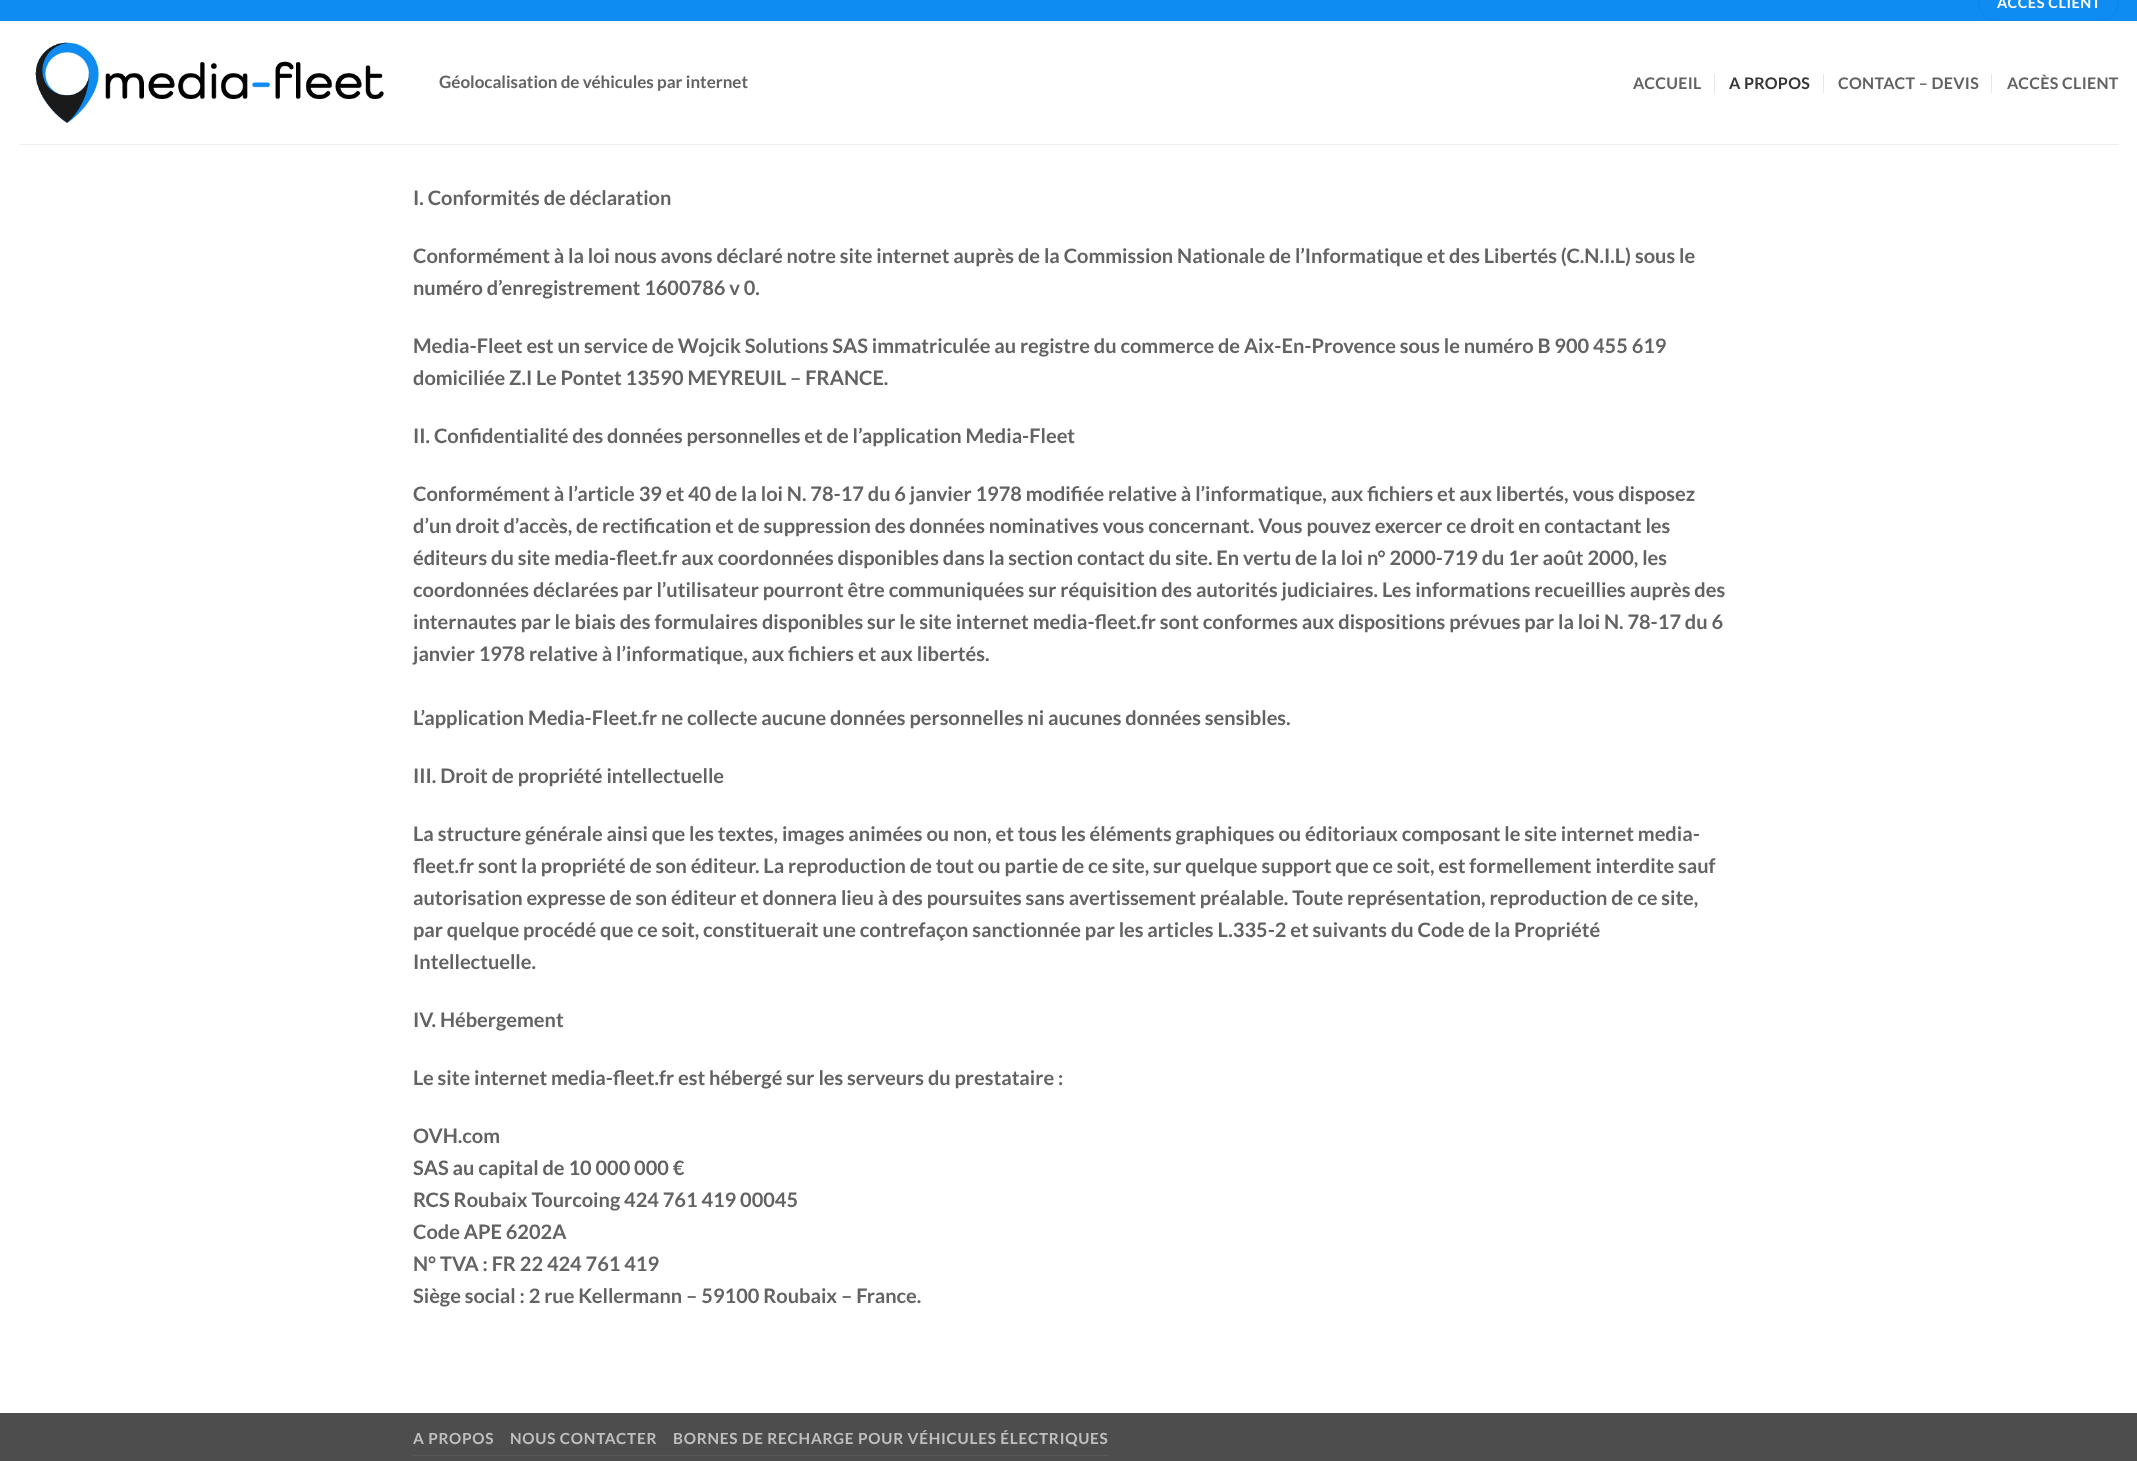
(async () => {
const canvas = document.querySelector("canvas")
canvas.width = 2137
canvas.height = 1461
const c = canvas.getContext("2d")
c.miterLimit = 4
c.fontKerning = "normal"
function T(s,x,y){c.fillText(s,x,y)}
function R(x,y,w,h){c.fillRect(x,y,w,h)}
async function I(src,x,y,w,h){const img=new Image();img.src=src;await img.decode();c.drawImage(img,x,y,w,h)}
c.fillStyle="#fff"
R(0,0,2137,1461)
c.fillStyle="#0f8cf2"
R(0,0,2137,21)
c.beginPath()
c.roundRect(1978.5,-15.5,140,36,18)
c.strokeStyle="#0e85e6"
c.stroke()
c.letterSpacing="0.5px"
c.font="bold 14.5px Lato"
c.fillStyle="#fff"
T("ACCÈS CLIENT",1997,8)
await I("1.png",35,42,349,82)
c.letterSpacing="0px"
c.font="bold 17px Lato"
c.fillStyle="#636363"
T("Géolocalisation de véhicules par internet",439,88)
c.letterSpacing="0.3px"
c.font="bold 16px Lato"
T("ACCUEIL",1633,89)
c.fillStyle="#e6e6e6"
R(1714,74,1,19)
c.fillStyle="#363636"
T("A PROPOS",1729,89)
c.fillStyle="#e6e6e6"
R(1823,74,1,19)
c.fillStyle="#636363"
T("CONTACT – DEVIS",1838,89)
c.fillStyle="#e6e6e6"
R(1991,74,1,19)
c.fillStyle="#636363"
T("ACCÈS CLIENT",2007,89)
c.fillStyle="#efefef"
R(19,144,2100,1)
c.letterSpacing="0px"
c.font="bold 20px Lato"
c.fillStyle="#636363"
T("I. Conformités de déclaration",413,205)
T("Conformément à la loi nous avons déclaré notre site internet auprès de la Commission Nationale de l’Informatique et des Libertés (C.N.I.L) sous le",413,263)
T("numéro d’enregistrement 1600786 v 0.",413,295)
T("Media-Fleet est un service de Wojcik Solutions SAS immatriculée au registre du commerce de Aix-En-Provence sous le numéro B 900 455 619",413,353)
T("domiciliée Z.I Le Pontet 13590 MEYREUIL – FRANCE.",413,385)
T("II. Confidentialité des données personnelles et de l’application Media-Fleet",413,443)
T("Conformément à l’article 39 et 40 de la loi N. 78-17 du 6 janvier 1978 modifiée relative à l’informatique, aux fichiers et aux libertés, vous disposez",413,501)
T("d’un droit d’accès, de rectification et de suppression des données nominatives vous concernant. Vous pouvez exercer ce droit en contactant les",413,533)
T("éditeurs du site media-fleet.fr aux coordonnées disponibles dans la section contact du site. En vertu de la loi n° 2000-719 du 1er août 2000, les",413,565)
T("coordonnées déclarées par l’utilisateur pourront être communiquées sur réquisition des autorités judiciaires. Les informations recueillies auprès des",413,597)
T("internautes par le biais des formulaires disponibles sur le site internet media-fleet.fr sont conformes aux dispositions prévues par la loi N. 78-17 du 6",413,629)
T("janvier 1978 relative à l’informatique, aux fichiers et aux libertés.",413,661)
T("L’application Media-Fleet.fr ne collecte aucune données personnelles ni aucunes données sensibles.",413,725)
T("III. Droit de propriété intellectuelle",413,783)
T("La structure générale ainsi que les textes, images animées ou non, et tous les éléments graphiques ou éditoriaux composant le site internet media-",413,841)
T("fleet.fr sont la propriété de son éditeur. La reproduction de tout ou partie de ce site, sur quelque support que ce soit, est formellement interdite sauf",413,873)
T("autorisation expresse de son éditeur et donnera lieu à des poursuites sans avertissement préalable. Toute représentation, reproduction de ce site,",413,905)
T("par quelque procédé que ce soit, constituerait une contrefaçon sanctionnée par les articles L.335-2 et suivants du Code de la Propriété",413,937)
T("Intellectuelle.",413,969)
T("IV. Hébergement",413,1027)
T("Le site internet media-fleet.fr est hébergé sur les serveurs du prestataire :",413,1085)
T("OVH.com",413,1143)
T("SAS au capital de 10 000 000 €",413,1175)
T("RCS Roubaix Tourcoing 424 761 419 00045",413,1207)
T("Code APE 6202A",413,1239)
T("N° TVA : FR 22 424 761 419",413,1271)
T("Siège social : 2 rue Kellermann – 59100 Roubaix – France.",413,1303)
c.fillStyle="#4d4d4d"
R(0,1413,2137,48)
c.fillStyle="#585858"
R(413,1455,696,1)
c.letterSpacing="0.75px"
c.font="bold 15.3px Lato"
c.fillStyle="#bfbfbf"
T("A PROPOS",413,1444)
T("NOUS CONTACTER",510,1444)
T("BORNES DE RECHARGE POUR VÉHICULES ÉLECTRIQUES",673,1444)
})()
